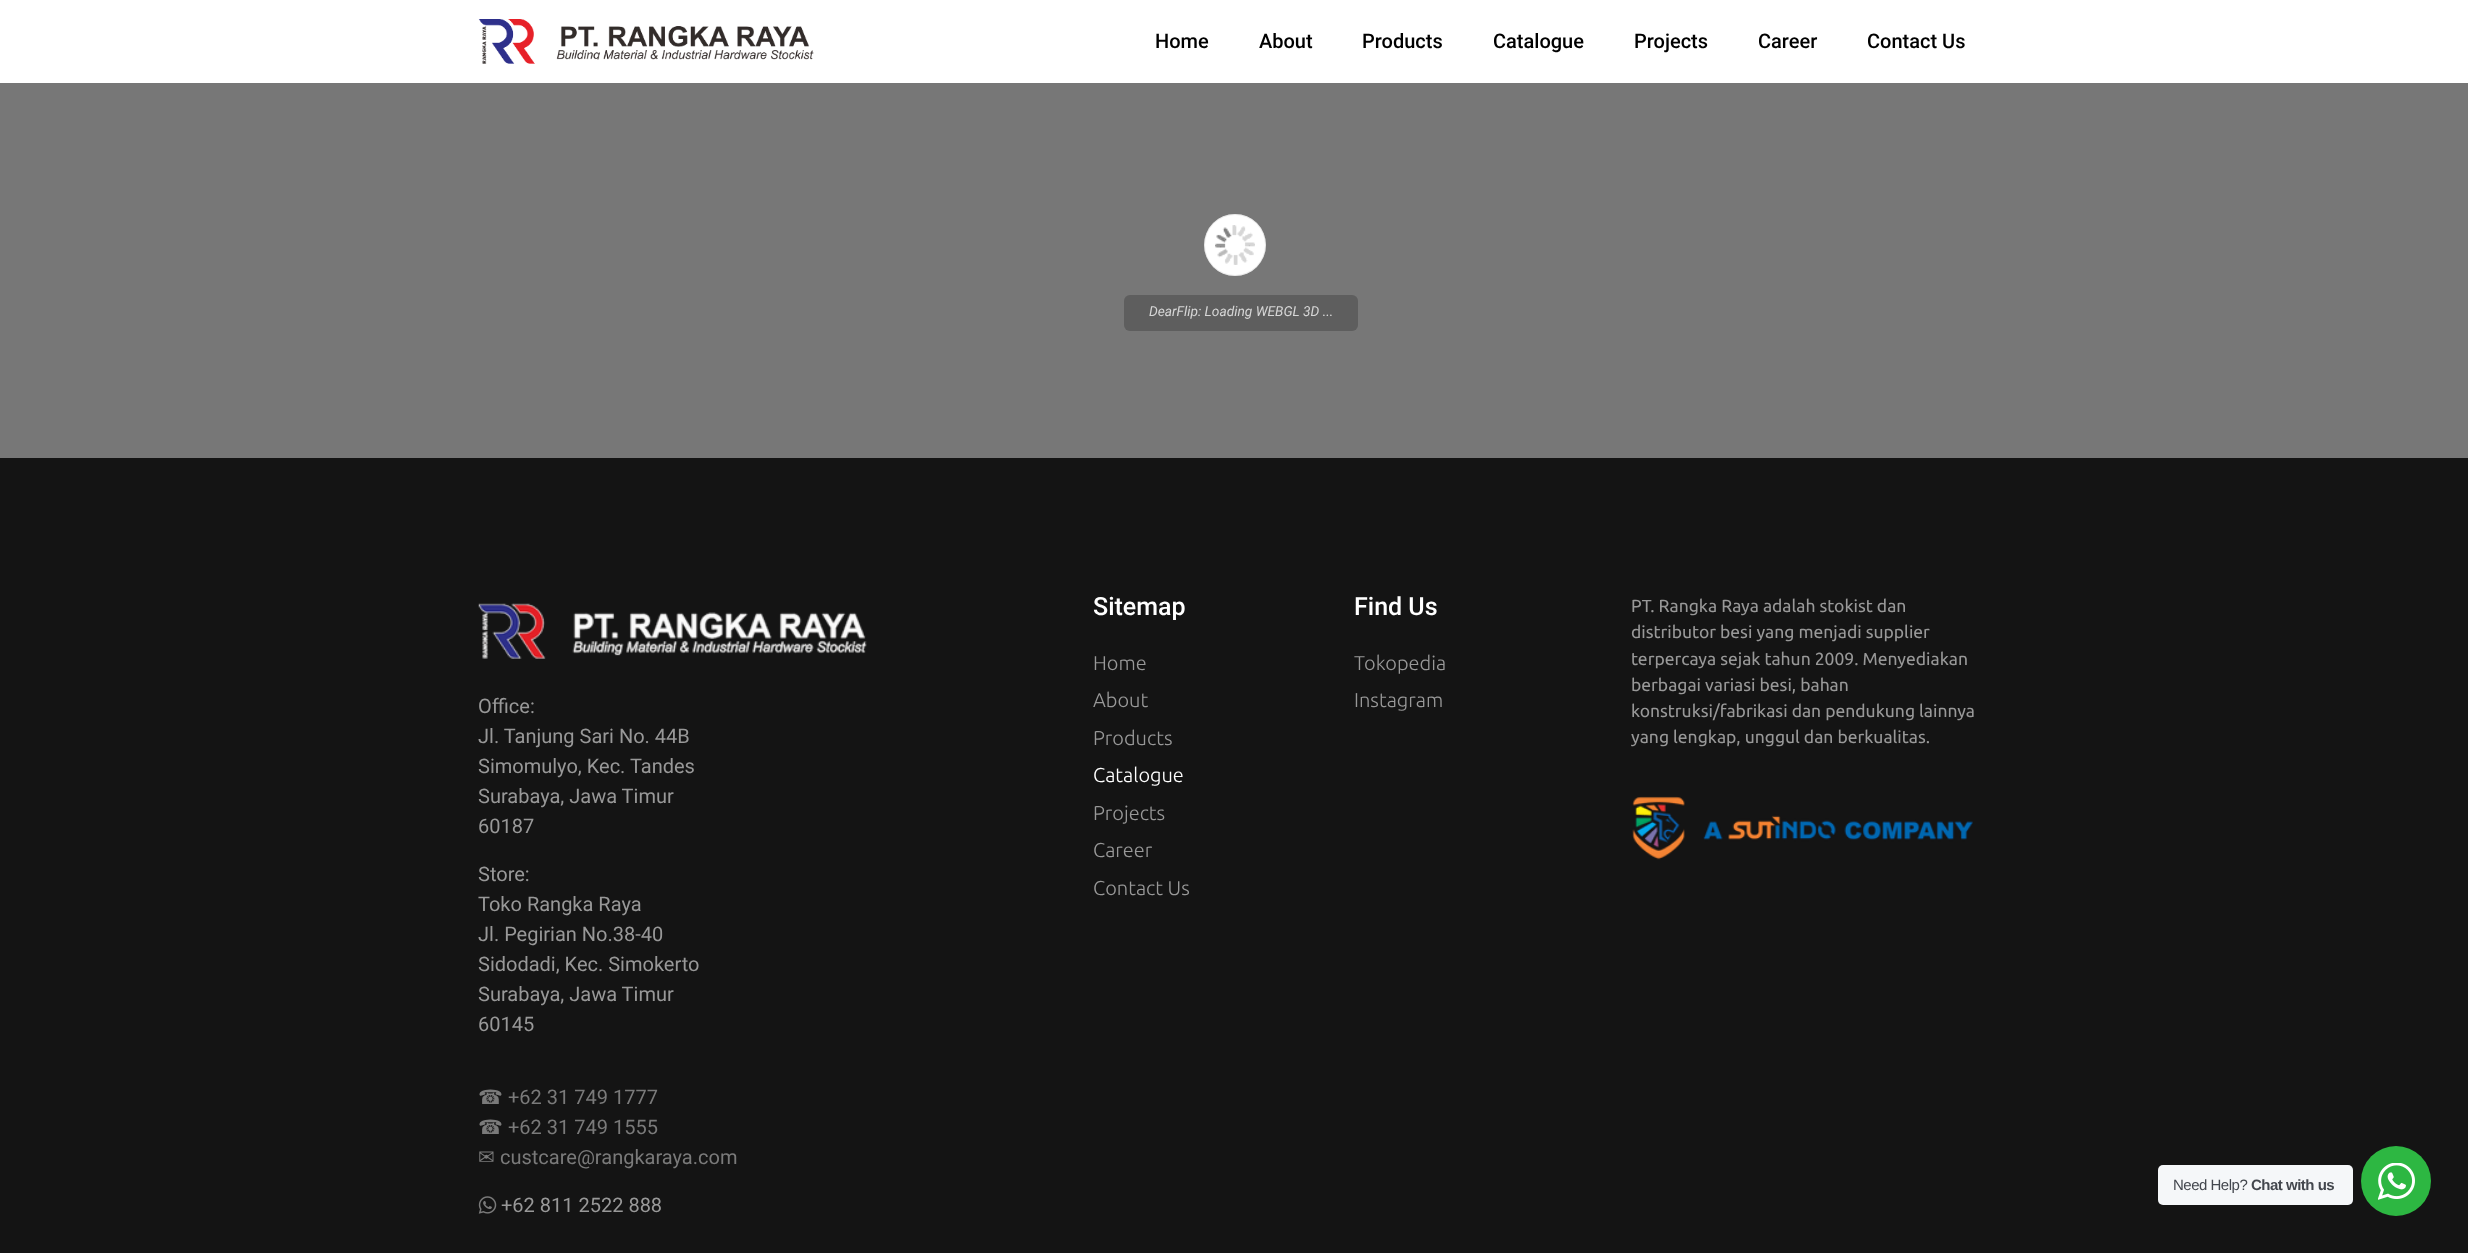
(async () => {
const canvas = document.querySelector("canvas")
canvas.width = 2468
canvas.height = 1253
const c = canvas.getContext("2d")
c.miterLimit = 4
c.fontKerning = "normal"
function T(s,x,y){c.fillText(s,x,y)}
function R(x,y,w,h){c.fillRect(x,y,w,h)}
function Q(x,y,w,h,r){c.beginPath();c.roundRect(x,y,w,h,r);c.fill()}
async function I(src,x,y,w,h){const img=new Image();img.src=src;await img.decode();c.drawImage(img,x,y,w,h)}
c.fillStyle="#fff"
R(0,0,2468,1253)
await I("1.png",478,19,336,45)
c.font="500 20px Roboto"
c.fillStyle="#000"
T("Home",1155,48)
T("About",1259,48)
T("Products",1362,48)
T("Catalogue",1493,48)
T("Projects",1634,48)
T("Career",1758,48)
T("Contact Us",1867,48)
c.fillStyle="#777"
R(0,83,2468,375)
c.fillStyle="#fff"
c.beginPath()
c.arc(1235,245,31,0,7)
c.fill()
c.beginPath()
c.arc(1235,245,30.5,0,7)
c.strokeStyle="#96969633"
c.stroke()
await I("2.png",1215,225,40,40)
c.fillStyle="#5e5e5e"
Q(1124,295,234,36,6)
c.font="italic 13.75px Roboto"
c.fillStyle="#d6d6d6"
T("DearFlip: Loading WEBGL 3D ...",1149,316)
c.fillStyle="#141414"
R(0,458,2468,795)
c.font="500 25px Roboto"
c.fillStyle="#fff"
T("Sitemap",1093,615)
c.font="300 20px Ubuntu"
c.fillStyle="#989898"
T("Home",1093,670)
T("About",1093,707)
T("Products",1093,745)
c.fillStyle="#fff"
T("Catalogue",1093,782)
c.fillStyle="#989898"
T("Projects",1093,820)
T("Career",1093,857)
T("Contact Us",1093,895)
c.font="500 25px Roboto"
c.fillStyle="#fff"
T("Find Us",1354,615)
c.font="300 20px Ubuntu"
c.fillStyle="#989898"
T("Tokopedia",1354,670)
T("Instagram",1354,707)
c.font="17.5px Ubuntu"
T("PT. Rangka Raya adalah stokist dan",1631,612)
T("distributor besi yang menjadi supplier",1631,638)
T("terpercaya sejak tahun 2009. Menyediakan",1631,665)
T("berbagai variasi besi, bahan",1631,691)
T("konstruksi/fabrikasi dan pendukung lainnya",1631,717)
T("yang lengkap, unggul dan berkualitas.",1631,743)
await I("3.png",1632,796,341,64)
await I("4.png",478,603,389,56)
c.font="20px Roboto"
T("Office:",478,713)
T("Jl. Tanjung Sari No. 44B",478,743)
T("Simomulyo, Kec. Tandes",478,773)
T("Surabaya, Jawa Timur",478,803)
T("60187",478,833)
T("Store:",478,881)
T("Toko Rangka Raya",478,911)
T("Jl. Pegirian No.38-40",478,941)
T("Sidodadi, Kec. Simokerto",478,971)
T("Surabaya, Jawa Timur",478,1001)
T("60145",478,1031)
c.font="20px DejaVu Sans"
c.fillStyle="#7a7a7a"
T("☎",478,1104)
c.font="20px Roboto"
T("+62 31 749 1777",508,1104)
c.font="20px DejaVu Sans"
T("☎",478,1134)
c.font="20px Roboto"
T("+62 31 749 1555",508,1134)
c.font="20px DejaVu Sans"
T("✉",478,1164)
c.font="20px Roboto"
T("custcare@rangkaraya.com",500,1164)
await I("5.png",478,1196,19,18)
c.fillStyle="#989898"
T("+62 811 2522 888",501,1212)
c.fillStyle="#f5f7f9"
Q(2158,1165,195,40,5)
c.letterSpacing="-0.5px"
c.font="15px Liberation Sans"
c.fillStyle="#43474e"
T("Need Help?",2173,1190)
c.font="bold 15px Liberation Sans"
T("Chat with us",2251,1190)
c.fillStyle="#2db742"
c.beginPath()
c.arc(2396,1181,35,0,7)
c.fill()
await I("6.png",2378,1163,37,37)
})()
